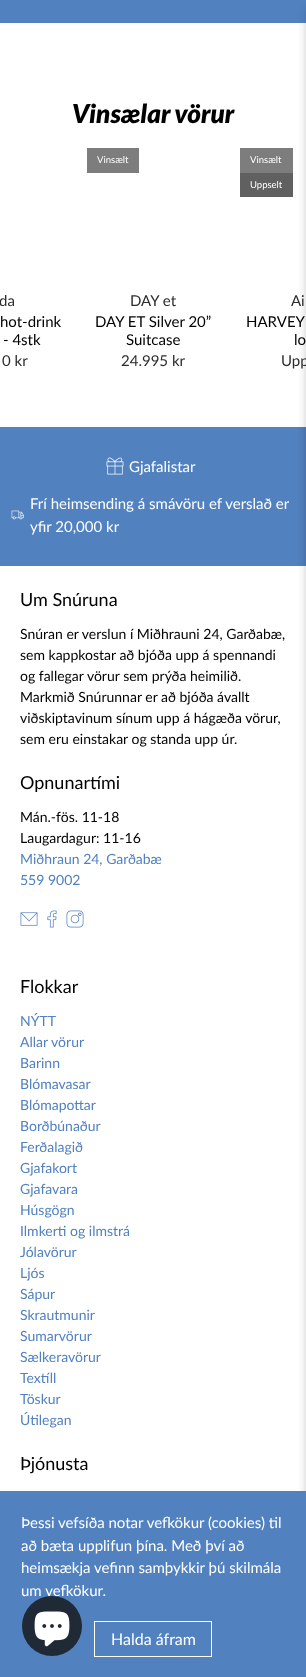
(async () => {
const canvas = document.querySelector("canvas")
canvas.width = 306
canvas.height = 1677
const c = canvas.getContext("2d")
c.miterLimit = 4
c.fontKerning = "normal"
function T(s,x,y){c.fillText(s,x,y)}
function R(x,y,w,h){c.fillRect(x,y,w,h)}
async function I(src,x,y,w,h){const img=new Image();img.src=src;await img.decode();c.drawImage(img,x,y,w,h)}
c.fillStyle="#fff"
R(0,0,306,1677)
c.fillStyle="#5181bf"
R(0,427,306,139)
c.fillStyle="#0a0a0a1a"
c.filter="blur(4px)"
c.beginPath()
c.rect(306,8,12,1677)
c.fill()
c.filter="none"
c.fillStyle="#5181bf"
R(0,0,306,23)
c.fillStyle="#0a0a0a1a"
c.filter="blur(4px)"
c.beginPath()
c.rect(306,8,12,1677)
c.fill()
c.filter="none"
c.font="italic 800 26px Lato"
c.fillStyle="#000"
T("Vinsælar vörur",72,123)
c.font="15px Lato"
c.fillStyle="#2c2c2c"
T("da",-1,306)
c.fillStyle="#000"
T("hot-drink",0,327)
T("- 4stk",3,345)
c.fillStyle="#2c2c2c"
T("0 kr",2,366)
c.fillStyle="#7d7d7d"
R(87,148,52,25)
c.font="9.5px Lato"
c.fillStyle="#fff"
T("Vinsælt",97,163)
c.font="15px Lato"
c.fillStyle="#2c2c2c"
T("DAY et",130,306)
c.fillStyle="#000"
T("DAY ET Silver 20”",95,327)
T("Suitcase",126,345)
c.fillStyle="#2c2c2c"
T("24.995 kr",121,366)
c.fillStyle="#7d7d7d"
R(240,148,53,25)
c.font="9.5px Lato"
c.fillStyle="#fff"
T("Vinsælt",250,163)
c.fillStyle="#606060"
R(240,173,53,24)
c.fillStyle="#fff"
T("Uppselt",250,188)
c.font="15px Lato"
c.fillStyle="#2c2c2c"
T("Ai",291,306)
c.fillStyle="#000"
T("HARVEY",246,327)
T("lo",294,345)
c.fillStyle="#2c2c2c"
T("Upp",281,366)
await I("1.png",106,457,18,18)
c.fillStyle="#fff"
T("Gjafalistar",129,472)
await I("2.png",11,510,13,10)
T("Frí heimsending á smávöru ef verslað er",30,509)
T("yfir 20,000 kr",30,532)
c.font="18px Lato"
c.fillStyle="#000"
T("Um Snúruna",20,606)
c.font="14px Lato"
T("Snúran er verslun í Miðhrauni 24, Garðabæ,",20,639)
T("sem kappkostar að bjóða upp á spennandi",20,660)
T("og fallegar vörur sem prýða heimilið.",20,681)
T("Markmið Snúrunnar er að bjóða ávallt",20,702)
T("viðskiptavinum sínum upp á hágæða vörur,",20,723)
T("sem eru einstakar og standa upp úr.",20,744)
c.font="18px Lato"
T("Opnunartími",20,789)
c.font="14px Lato"
T("Mán.-fös. 11-18",20,822)
T("Laugardagur: 11-16",20,843)
c.fillStyle="#5181bf"
T("Miðhraun 24, Garðabæ",20,864)
T("559 9002",20,885)
await I("3.png",20,912,18,14)
await I("4.png",47,910,10,18)
await I("5.png",66,910,18,18)
c.font="18px Lato"
c.fillStyle="#000"
T("Flokkar",20,993)
c.font="14px Lato"
c.fillStyle="#5181bf"
T("NÝTT",20,1026)
T("Allar vörur",20,1047)
T("Barinn",20,1068)
T("Blómavasar",20,1089)
T("Blómapottar",20,1110)
T("Borðbúnaður",20,1131)
T("Ferðalagið",20,1152)
T("Gjafakort",20,1173)
T("Gjafavara",20,1194)
T("Húsgögn",20,1215)
T("Ilmkerti og ilmstrá",20,1236)
T("Jólavörur",20,1257)
T("Ljós",20,1278)
T("Sápur",20,1299)
T("Skrautmunir",20,1320)
T("Sumarvörur",20,1341)
T("Sælkeravörur",20,1362)
T("Textíll",20,1383)
T("Töskur",20,1404)
T("Útilegan",20,1425)
c.font="18px Lato"
c.fillStyle="#000"
T("Þjónusta",20,1470)
c.fillStyle="#5181bf"
R(0,1491,306,186)
c.font="15px Lato"
c.fillStyle="#fff"
T("Þessi vefsíða notar vefkökur (cookies) til",21,1528)
T("að bæta upplifun þína. Með því að",21,1551)
T("heimsækja vefinn samþykkir þú skilmála",21,1573)
T("um vefkökur.",21,1596)
c.strokeStyle="#fff"
c.strokeRect(94.5,1621.5,117,35)
c.font="16px Lato"
T("Halda áfram",111,1645)
c.fillStyle="#202a36"
c.beginPath()
c.arc(52,1626,30,0,7)
c.fill()
await I("6.png",34,1611,36,36)
})()
